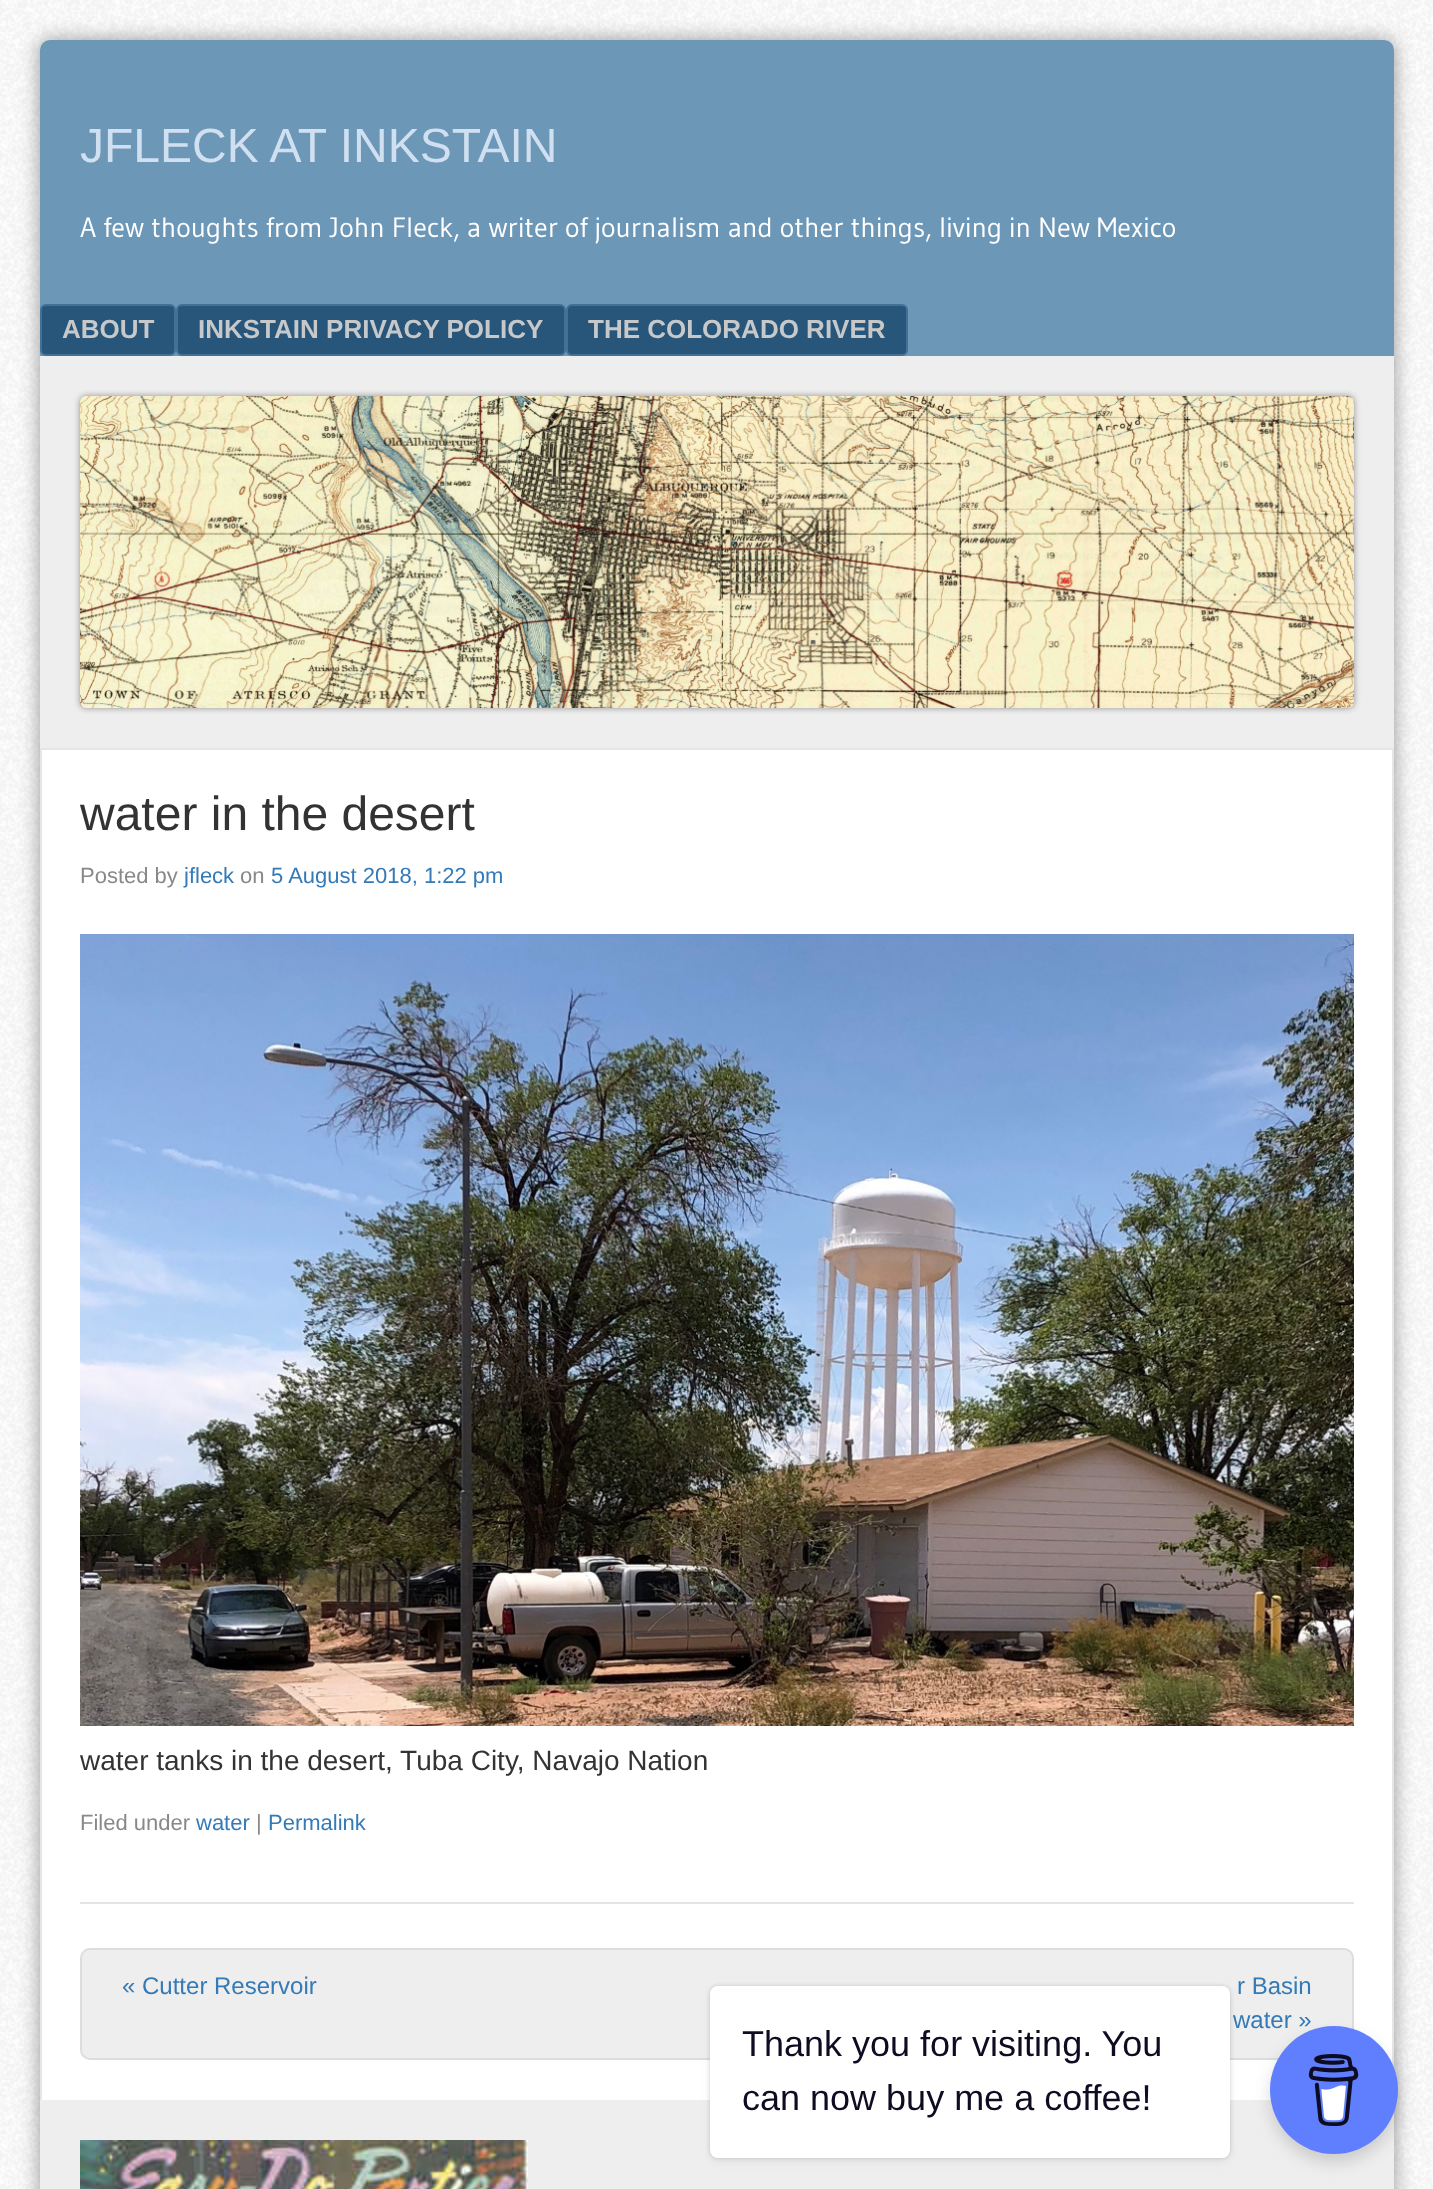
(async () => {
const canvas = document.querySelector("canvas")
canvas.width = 1433
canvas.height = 2189
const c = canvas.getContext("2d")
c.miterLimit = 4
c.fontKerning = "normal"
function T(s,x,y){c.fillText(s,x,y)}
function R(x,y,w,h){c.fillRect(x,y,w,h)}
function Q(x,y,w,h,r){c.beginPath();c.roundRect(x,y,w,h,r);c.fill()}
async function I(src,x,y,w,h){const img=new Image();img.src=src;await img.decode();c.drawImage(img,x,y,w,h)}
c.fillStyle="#fff"
R(0,0,1433,2189)
await I("1.png",0,0,1433,2189)
c.fillStyle="#00000066"
c.filter="blur(10px)"
c.beginPath()
c.roundRect(40,40,1354,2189,10)
c.fill()
c.filter="none"
c.fillStyle="#6d97b7"
c.beginPath()
c.roundRect(40,40,1354,708,[10,10,0,0])
c.fill()
c.font="48px Liberation Sans"
c.fillStyle="#d0e0f0"
T("JFLECK AT INKSTAIN",80,162)
c.font="28px Gudea"
c.fillStyle="#fff"
T("A few thoughts from John Fleck, a writer of journalism and other things, living in New Mexico",80,237)
c.fillStyle="#27567a"
c.beginPath()
c.roundRect(41,305,134,50,5)
c.fill()
c.strokeStyle="#417196"
c.lineWidth=2
c.stroke()
c.font="bold 26px Liberation Sans"
c.fillStyle="#c6c8c9"
T("ABOUT",62,338)
c.fillStyle="#27567a"
c.beginPath()
c.roundRect(177,305,388,50,5)
c.fill()
c.stroke()
c.fillStyle="#c6c8c9"
T("INKSTAIN PRIVACY POLICY",198,338)
c.fillStyle="#27567a"
c.beginPath()
c.roundRect(567,305,340,50,5)
c.fill()
c.stroke()
c.fillStyle="#c6c8c9"
T("THE COLORADO RIVER",588,338)
c.fillStyle="#eee"
R(40,356,1354,392)
c.fillStyle="#00000066"
c.filter="blur(3px)"
c.beginPath()
c.roundRect(80,396,1274,312,6)
c.fill()
c.filter="none"
await I("2.png",80,396,1274,312)
c.fillStyle="#fff"
R(42,750,1350,1350)
c.strokeStyle="#e6e6e6"
c.strokeRect(41,749,1352,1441)
c.fillStyle="#e4e4e4"
R(80,1902,1274,2)
c.font="48px Liberation Sans"
c.fillStyle="#333"
T("water in the desert",80,830)
c.font="22px Liberation Sans"
c.fillStyle="#888"
T("Posted by",80,883)
c.fillStyle="#337ab7"
T("jfleck",184,883)
c.fillStyle="#888"
T("on",240,883)
c.fillStyle="#337ab7"
T("5 August 2018, 1:22 pm",271,883)
await I("3.png",80,934,1274,792)
c.font="28px Liberation Sans"
c.fillStyle="#333"
T("water tanks in the desert, Tuba City, Navajo Nation",80,1770)
c.font="22px Liberation Sans"
c.fillStyle="#888"
T("Filed under",80,1830)
c.fillStyle="#337ab7"
T("water",196,1830)
c.fillStyle="#888"
T("|",256,1830)
c.fillStyle="#337ab7"
T("Permalink",268,1830)
c.fillStyle="#eee"
c.beginPath()
c.roundRect(81,1949,1272,110,9)
c.fill()
c.strokeStyle="#ddd"
c.stroke()
c.font="24px Liberation Sans"
c.fillStyle="#337ab7"
T("« Cutter Reservoir",122,1994)
T("r Basin",1237,1994)
T("water »",1233,2028)
c.fillStyle="#eee"
R(40,2100,1354,89)
await I("4.png",80,2140,448,49)
c.fillStyle="#00000026"
c.filter="blur(2px)"
c.beginPath()
c.roundRect(710,1986,520,172,8)
c.fill()
c.filter="none"
c.fillStyle="#0000000d"
c.filter="blur(5px)"
c.beginPath()
c.roundRect(710,1990,520,172,8)
c.fill()
c.filter="none"
c.fillStyle="#fff"
Q(710,1986,520,172,8)
c.font="36px Liberation Sans"
c.fillStyle="#0d0c22"
T("Thank you for visiting. You",742,2056)
T("can now buy me a coffee!",742,2110)
c.fillStyle="#00000026"
c.filter="blur(8px)"
c.beginPath()
c.roundRect(1270,2034,128,128,64)
c.fill()
c.filter="none"
c.fillStyle="#5f7fff"
c.beginPath()
c.arc(1334,2090,64,0,7)
c.fill()
await I("5.png",1308,2054,51,72)
})()
